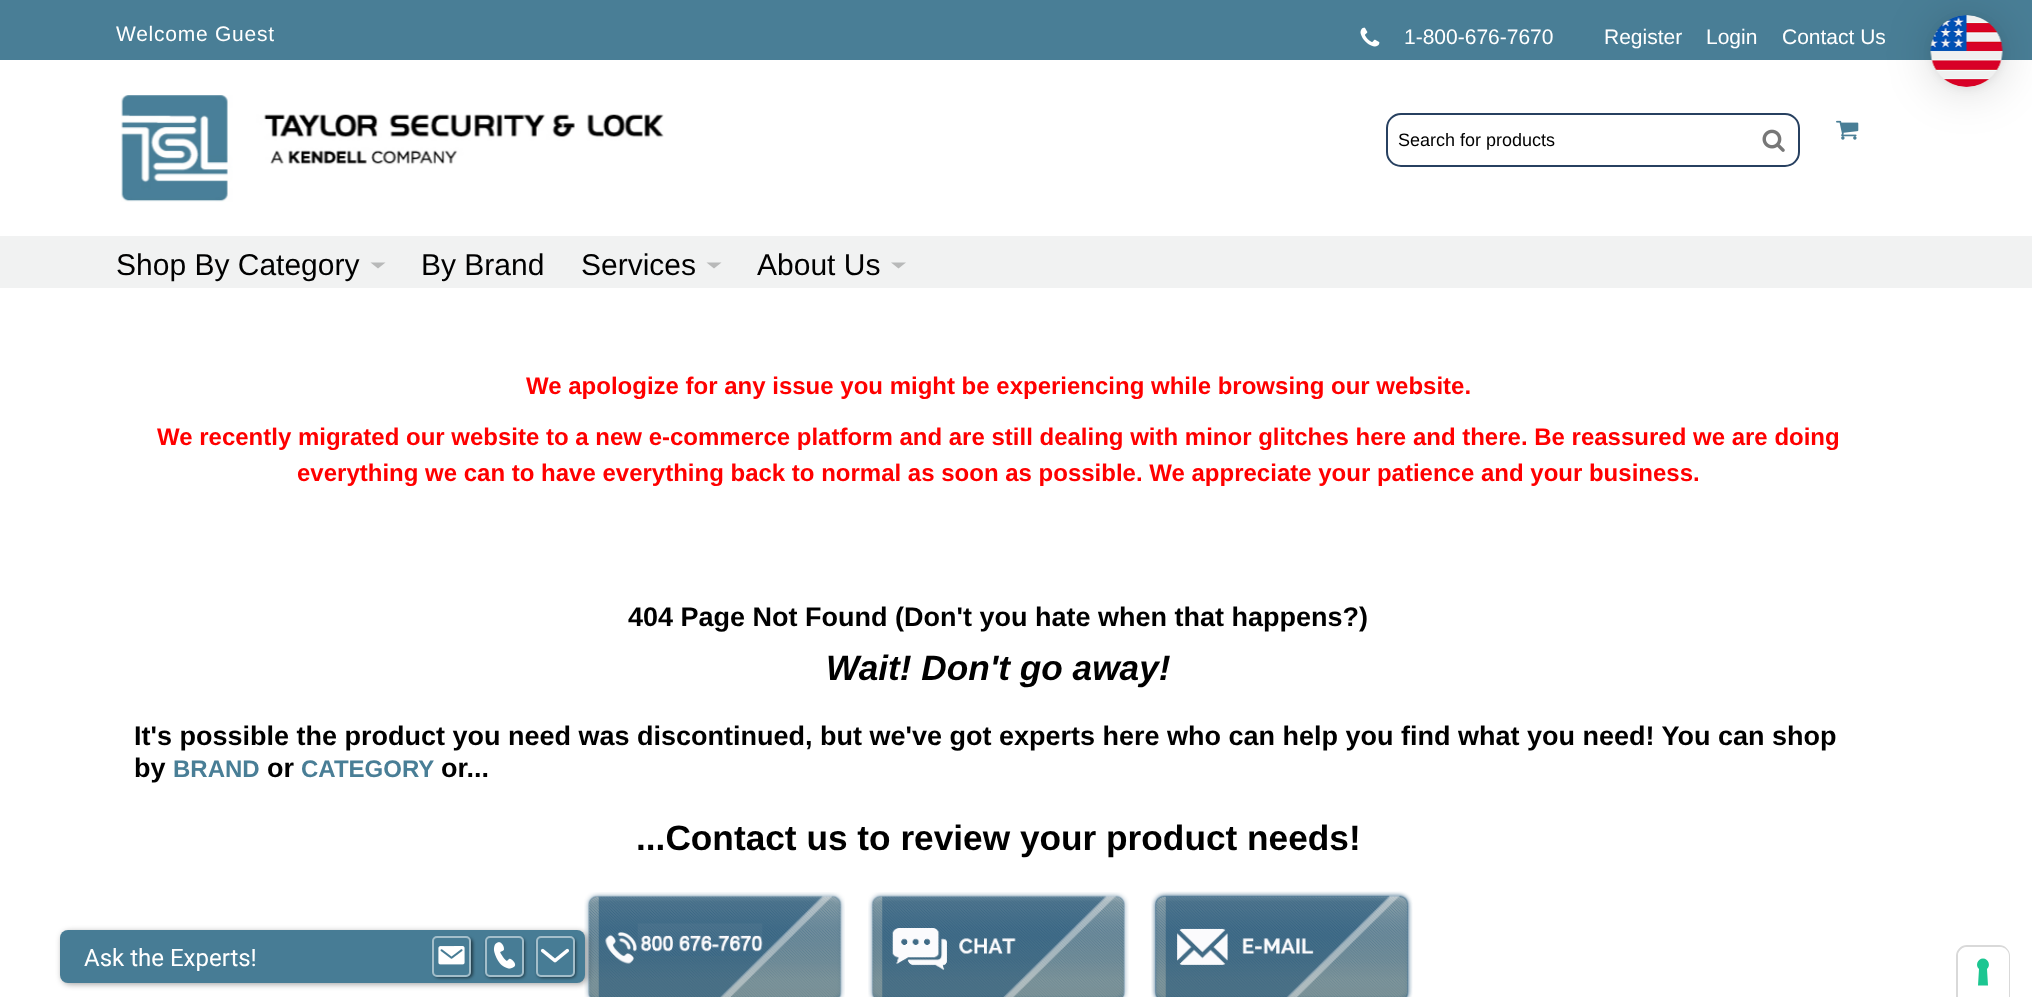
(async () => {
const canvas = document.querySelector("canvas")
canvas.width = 2032
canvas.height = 997
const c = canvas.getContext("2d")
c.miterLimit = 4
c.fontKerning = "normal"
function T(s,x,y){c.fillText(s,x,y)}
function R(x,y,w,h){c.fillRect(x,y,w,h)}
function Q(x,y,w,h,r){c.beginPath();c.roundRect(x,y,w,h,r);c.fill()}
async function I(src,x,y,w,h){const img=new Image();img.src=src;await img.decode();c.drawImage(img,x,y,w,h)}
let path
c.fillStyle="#fff"
R(0,0,2032,997)
c.fillStyle="#497e96"
R(0,0,2032,60)
c.letterSpacing="0.75px"
c.font="21px Liberation Sans"
c.fillStyle="#fff"
T("Welcome Guest",116,41)
await I("1.png",1360,27,20,20)
c.letterSpacing="0px"
T("1-800-676-7670",1404,44)
T("Register",1604,44)
T("Login",1706,44)
T("Contact Us",1782,44)
await I("2.png",121,95,543,107)
c.beginPath()
c.roundRect(1387,114,412,52,14)
c.strokeStyle="#274060"
c.lineWidth=2
c.stroke()
c.font="18px Liberation Sans"
c.fillStyle="#000"
T("Search for products",1398,146)
await I("3.png",1762,129,23,23)
await I("4.png",1836,120,23,20)
c.fillStyle="#f1f2f2"
R(0,236,2032,52)
c.font="30px Liberation Sans"
c.fillStyle="#000"
T("Shop By Category",116,275)
c.fillStyle="#b8b9b9"
path = new Path2D("M370.5 262.5h15l-7.5 6z")
c.fill(path)
c.fillStyle="#000"
T("By Brand",421,275)
T("Services",581,275)
c.fillStyle="#b8b9b9"
path = new Path2D("M706.5 262.5h15l-7.5 6z")
c.fill(path)
c.fillStyle="#000"
T("About Us",757,275)
c.fillStyle="#b8b9b9"
path = new Path2D("M891 262.5h15l-7.5 6z")
c.fill(path)
c.font="bold 24px Liberation Sans"
c.fillStyle="#f00"
T("We apologize for any issue you might be experiencing while browsing our website.",526,394)
T("We recently migrated our website to a new e-commerce platform and are still dealing with minor glitches here and there. Be reassured we are doing",157,445)
T("everything we can to have everything back to normal as soon as possible. We appreciate your patience and your business.",297,481)
c.font="bold 27px Liberation Sans"
c.fillStyle="#000"
T("404 Page Not Found (Don't you hate when that happens?)",628,626)
c.font="italic bold 35.25px Liberation Sans"
T("Wait! Don't go away!",826,680)
c.font="bold 27px Liberation Sans"
T("It's possible the product you need was discontinued, but we've got experts here who can help you find what you need! You can shop",134,745)
T("by",134,777)
c.font="bold 24px Liberation Sans"
c.fillStyle="#497e96"
T("BRAND",173,777)
c.font="bold 27px Liberation Sans"
c.fillStyle="#000"
T("or",267,777)
c.font="bold 24px Liberation Sans"
c.fillStyle="#497e96"
T("CATEGORY",301,777)
c.font="bold 27px Liberation Sans"
c.fillStyle="#000"
T("or...",441,777)
c.font="bold 35.25px Liberation Sans"
T("...Contact us to review your product needs!",636,850)
await I("5.png",584,892,261,105)
await I("6.png",868,892,261,105)
await I("7.png",1151,891,262,106)
c.fillStyle="#00000029"
c.filter="blur(24px)"
c.beginPath()
c.roundRect(1931,18,72,72,36)
c.fill()
c.filter="none"
c.fillStyle="#0000000f"
c.filter="blur(4.5px)"
c.beginPath()
c.roundRect(1931,17,72,72,36)
c.fill()
c.filter="none"
await I("8.png",1930,15,73,72)
c.fillStyle="#00000066"
c.filter="blur(3px)"
c.beginPath()
c.roundRect(62,932,525,52,8)
c.fill()
c.filter="none"
c.fillStyle="#477c95"
Q(60,930,525,53,8)
c.font="24px Roboto"
c.fillStyle="#fff"
T("Ask the Experts!",84,966)
c.save()
path = new Path2D("M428 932h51v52h-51zm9 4h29c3 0 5 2 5 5v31c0 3-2 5-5 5h-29c-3 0-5-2-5-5v-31c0-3 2-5 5-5z")
c.clip(path,"evenodd")
c.fillStyle="#00000080"
c.filter="blur(1.5px)"
c.beginPath()
c.roundRect(434,938,39,40,5)
c.fill()
c.filter="none"
c.restore()
c.beginPath()
c.roundRect(433,937,37,39,4)
c.strokeStyle="#ffffff80"
c.stroke()
await I("9.png",438,946,27,19)
c.save()
path = new Path2D("M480 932h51v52h-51zm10 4h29c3 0 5 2 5 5v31c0 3-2 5-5 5h-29c-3 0-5-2-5-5v-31c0-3 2-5 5-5z")
c.clip(path,"evenodd")
c.fillStyle="#00000080"
c.filter="blur(1.5px)"
c.beginPath()
c.roundRect(486,938,39,40,5)
c.fill()
c.filter="none"
c.restore()
c.beginPath()
c.roundRect(486,937,37,39,4)
c.stroke()
await I("10.png",493,942,23,27)
c.save()
path = new Path2D("M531 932h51v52h-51zm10 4h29c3 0 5 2 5 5v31c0 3-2 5-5 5h-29c-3 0-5-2-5-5v-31c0-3 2-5 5-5z")
c.clip(path,"evenodd")
c.fillStyle="#00000080"
c.filter="blur(1.5px)"
c.beginPath()
c.roundRect(537,938,39,40,5)
c.fill()
c.filter="none"
c.restore()
c.beginPath()
c.roundRect(537,937,37,39,4)
c.stroke()
await I("11.png",540,948,29,15)
path = new Path2D("M1967 946h32c5.5 0 10 4.5 10 10v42h-52v-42c0-5.5 4.5-10 10-10z")
c.strokeStyle="#d9d9d9"
c.stroke(path)
path = new Path2D("M1967 947h33c5 0 9 4 9 9v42h-51v-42c0-5 4-9 9-9z")
c.fill(path)
c.fillStyle="#1cc691"
path = new Path2D("M1983 958.5c5.5 0 8 7 4 10.5l1 16.5h-10l1-16.5c-4-3.5-1.5-10.5 4-10.5z")
c.fill(path,"evenodd")
})()
